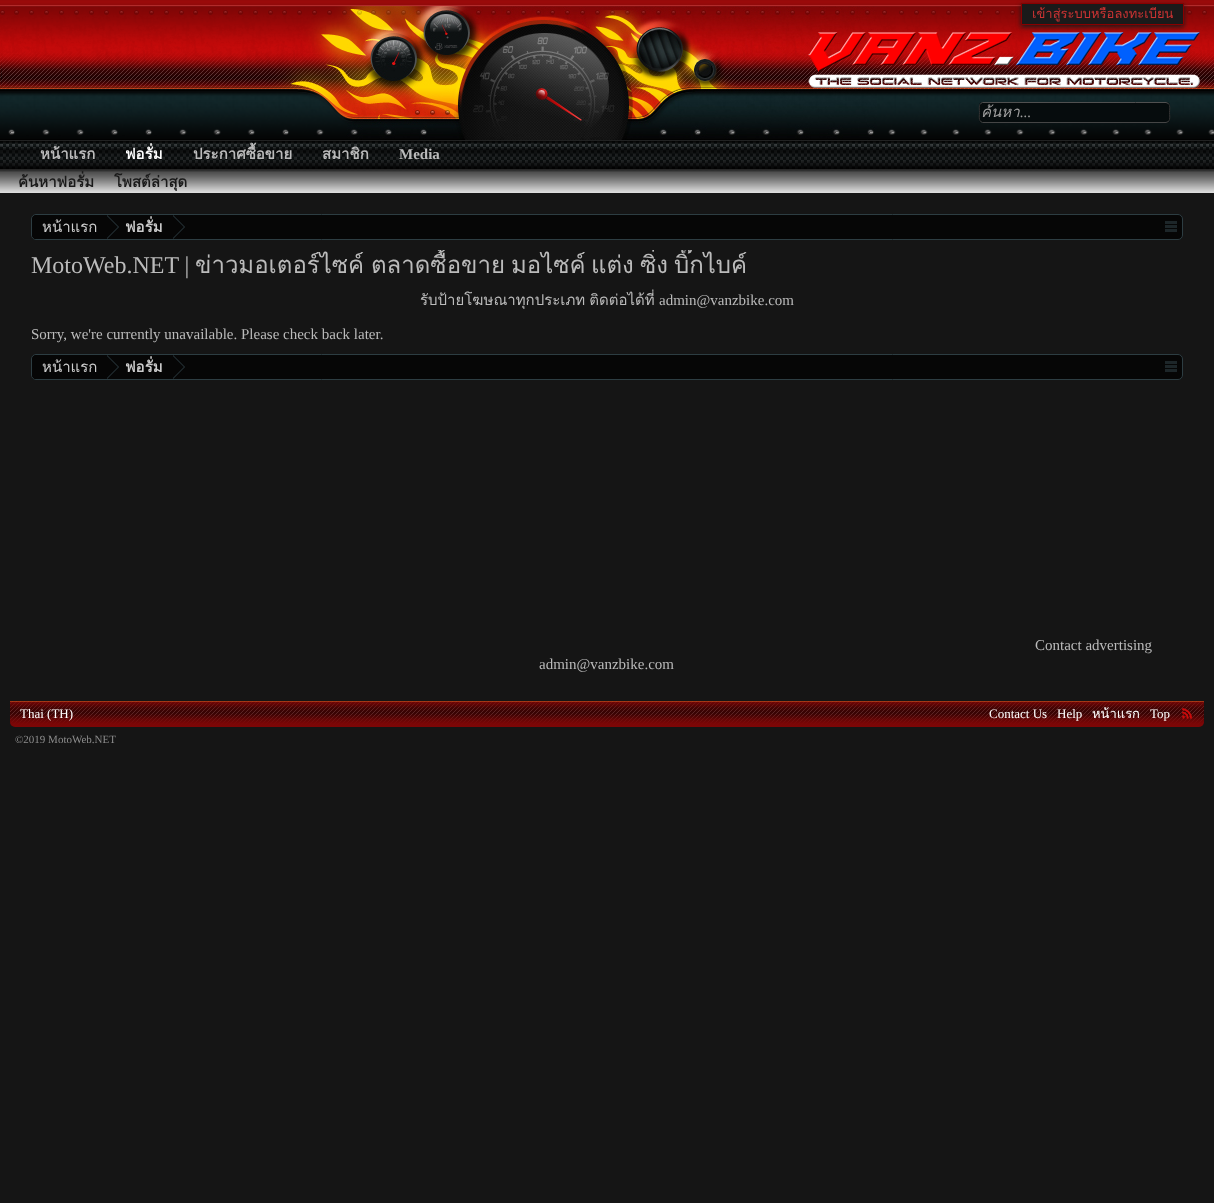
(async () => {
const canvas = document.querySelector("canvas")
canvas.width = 1214
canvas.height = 1203
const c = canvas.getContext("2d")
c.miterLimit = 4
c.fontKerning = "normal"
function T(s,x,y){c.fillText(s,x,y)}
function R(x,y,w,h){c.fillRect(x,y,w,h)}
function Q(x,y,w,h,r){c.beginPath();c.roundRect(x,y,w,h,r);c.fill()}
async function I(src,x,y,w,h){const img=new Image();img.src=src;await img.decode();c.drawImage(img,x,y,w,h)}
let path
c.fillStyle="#151515"
R(0,0,1214,1203)
await I("1.png",0,0,1214,5)
await I("2.png",0,5,1214,135)
await I("4.png",347,6,530,134)
await I("5.png",808,32,392,56)
c.fillStyle="#1a1a1a"
c.filter="blur(2.5px)"
c.beginPath()
c.rect(1021,5,163,22)
c.fill()
c.filter="none"
c.beginPath()
c.rect(1021.5,3.5,162,21)
c.fill()
c.strokeStyle="#800"
c.stroke()
c.font="13px Loma"
c.fillStyle="#c33"
T("เข้าสู่ระบบหรือลงทะเบียน",1032,18)
await I("3.png",0,6,347,129)
c.fillStyle="#060c0d"
Q(979,102,191,21,4)
path = new Path2D("M980.5 103.5l2-1h153h30.5l2.5 1")
c.strokeStyle="#505050"
c.stroke(path)
path = new Path2D("M1168.5 103.5c2 2 1 6.5 1 9c0 2.5 1 7-1 9")
c.strokeStyle="#333"
c.stroke(path)
path = new Path2D("M1168.5 121.5l-2.5 1h-183.5l-2-1")
c.strokeStyle="#454545"
c.stroke(path)
path = new Path2D("M980.5 121.5c-2-2-1-6.5-1-9c0-2.5-1-7 1-9")
c.strokeStyle="#333"
c.stroke(path)
c.save()
c.beginPath()
c.rect(981,100,173,24)
c.clip()
c.font="italic 15px Loma"
c.fillStyle="#a0a0a0"
T("ค้นหา",981,117)
c.restore()
c.font="italic 15px Liberation Serif"
c.fillStyle="#a0a0a0"
T("...",1020,117)
await I("6.png",0,140,1214,53)
c.font="bold 15px Loma"
c.fillStyle="#fff"
T("ฟอรั่ม",125,159)
c.fillStyle="#1a1a1a"
T("ค้นหาฟอรั่ม",18,187)
T("โพสต์ล่าสุด",114,187)
c.fillStyle="#bbb"
T("ประกาศซื้อขาย",193,159)
T("หน้าแรก",40,159)
T("สมาชิก",322,159)
c.font="bold 15px Liberation Serif"
T("Media",399,159)
c.fillStyle="#060606"
c.beginPath()
c.roundRect(31.5,214.5,1151,25,4.5)
c.fill()
c.strokeStyle="#2d3d42"
c.stroke()
c.save()
c.beginPath()
c.roundRect(32,215,1150,24,4)
c.clip()
c.beginPath()
c.roundRect(32,215,75,25,[5,0,0,5])
c.fill()
c.restore()
c.font="15px Loma"
c.fillStyle="#ccc"
T("หน้าแรก",42,232)
c.fillStyle="#2d3d42"
path = new Path2D("M107 239v-24l12 12z")
c.fill(path)
c.fillStyle="#060606"
path = new Path2D("M106 239v-24l12 12z")
c.fill(path)
c.font="bold 15px Loma"
c.fillStyle="#ccc"
T("ฟอรั่ม",125,232)
c.fillStyle="#2d3d42"
path = new Path2D("M173 239v-24l12 12z")
c.fill(path)
c.fillStyle="#060606"
path = new Path2D("M172 239v-24l12 12z")
c.fill(path)
await I("7.png",1165,221,12,11)
c.font="24px Liberation Serif"
c.fillStyle="#bbb"
T("MotoWeb.NET |",31,273)
c.font="24px Loma"
T("ข่าวมอเตอร์ไซค์",195,273)
c.save()
c.beginPath()
c.rect(31,250,1152,31)
c.clip()
T("ตลาดซื้อขาย",371,273)
c.restore()
T("มอไซค์",511,273)
T("แต่ง",591,273)
c.save()
c.beginPath()
c.rect(31,250,1152,31)
c.clip()
T("ซิ่ง",640,273)
T("บิ๊กไบค์",674,273)
c.restore()
c.wordSpacing="-1px"
c.font="15px Loma"
T("รับป้ายโฆษณาทุกประเภท ติดต่อได้ที่",420,305)
c.wordSpacing="0px"
c.font="15px Liberation Serif"
T("admin@vanzbike.com",659,305)
T("Sorry, we're currently unavailable. Please check back later.",31,339)
c.fillStyle="#060606"
c.beginPath()
c.roundRect(31.5,354.5,1151,25,4.5)
c.fill()
c.stroke()
c.save()
c.beginPath()
c.roundRect(32,355,1150,24,4)
c.clip()
c.beginPath()
c.roundRect(32,355,75,25,[5,0,0,5])
c.fill()
c.restore()
c.font="15px Loma"
c.fillStyle="#ccc"
T("หน้าแรก",42,372)
c.fillStyle="#2d3d42"
path = new Path2D("M107 379v-24l12 12z")
c.fill(path)
c.fillStyle="#060606"
path = new Path2D("M106 379v-24l12 12z")
c.fill(path)
c.font="bold 15px Loma"
c.fillStyle="#ccc"
T("ฟอรั่ม",125,372)
c.fillStyle="#2d3d42"
path = new Path2D("M173 379v-24l12 12z")
c.fill(path)
c.fillStyle="#060606"
path = new Path2D("M172 379v-24l12 12z")
c.fill(path)
await I("7.png",1165,361,12,11)
c.font="15px Liberation Serif"
c.fillStyle="#bbb"
T("Contact advertising",1035,650)
T("admin@vanzbike.com",539,669)
await I("8.png",10,701,1194,26)
c.font="13px Liberation Serif"
c.fillStyle="#fff"
T("Thai (TH)",20,718)
T("Contact Us",989,718)
T("Help",1057,718)
c.font="13px Loma"
T("หน้าแรก",1092,718)
c.font="13px Liberation Serif"
T("Top",1150,718)
await I("9.png",1182,708,10,11)
c.font="11px Liberation Serif"
c.fillStyle="#8c8c8c"
T("©2019 MotoWeb.NET",15,743)
})()
